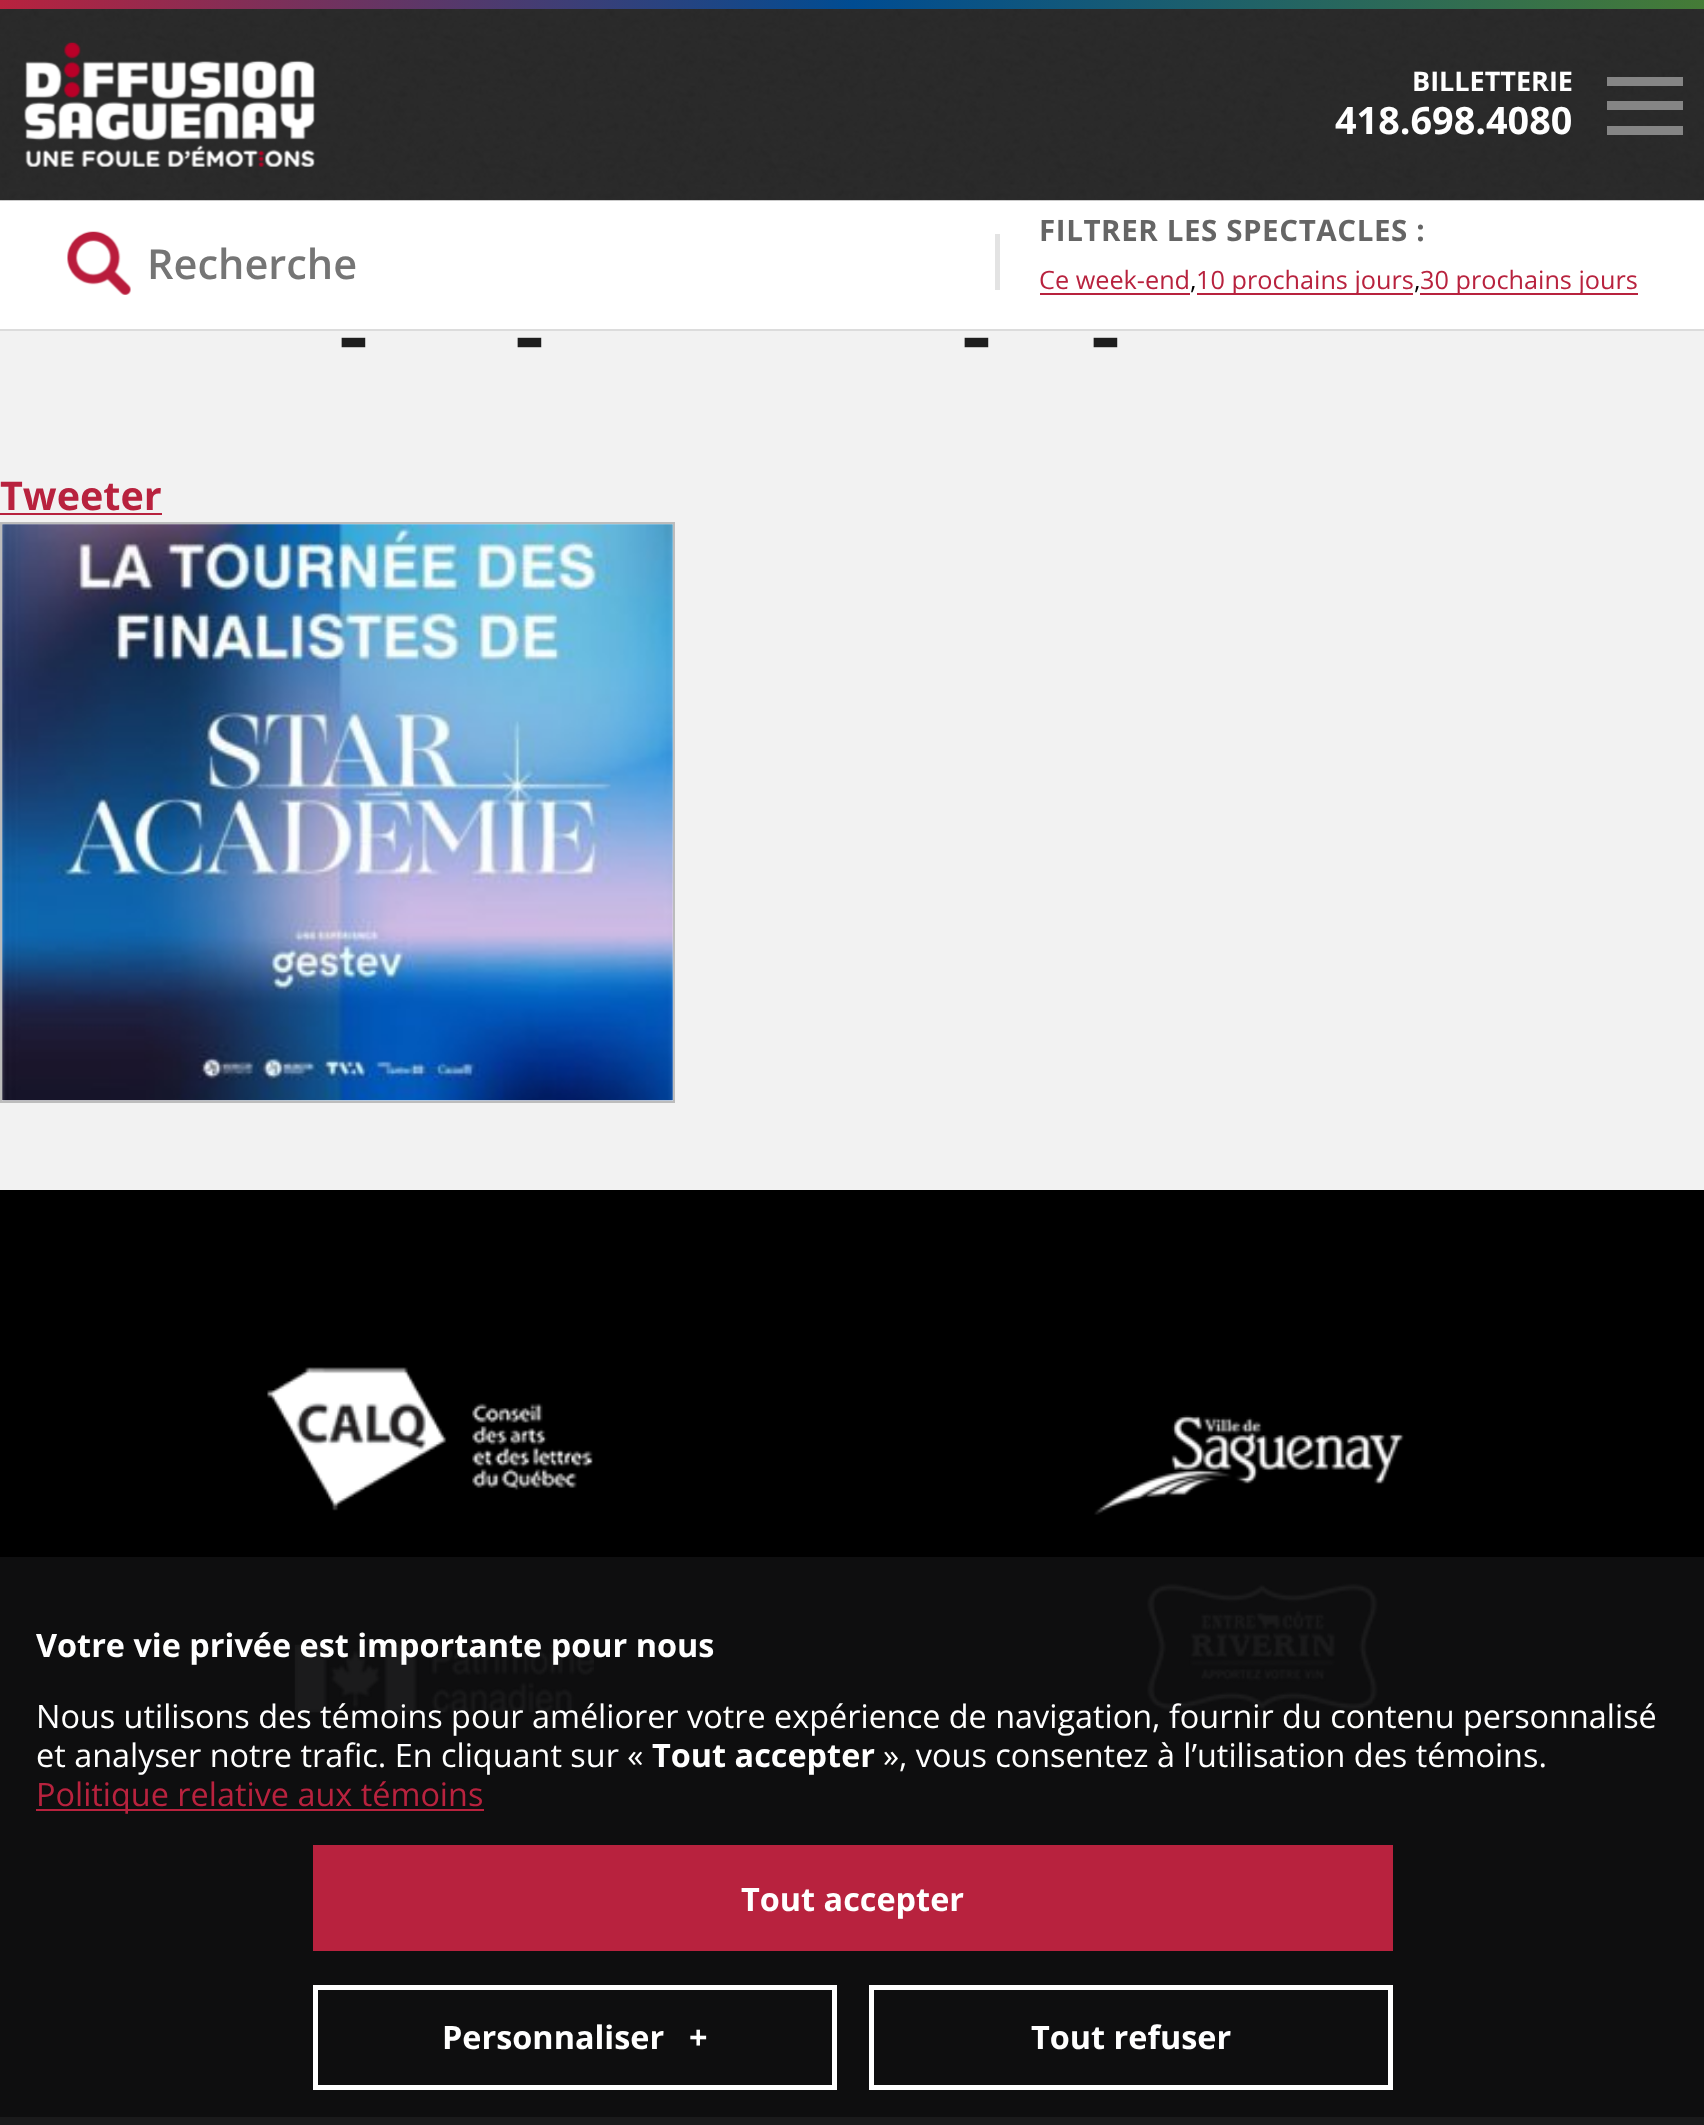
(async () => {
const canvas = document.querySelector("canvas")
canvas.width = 1704
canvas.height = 2125
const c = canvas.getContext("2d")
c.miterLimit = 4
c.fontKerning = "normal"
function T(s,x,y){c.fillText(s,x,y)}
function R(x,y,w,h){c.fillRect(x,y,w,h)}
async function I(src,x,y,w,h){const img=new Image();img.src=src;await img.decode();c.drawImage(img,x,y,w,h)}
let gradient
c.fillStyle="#f2f2f2"
R(0,0,1704,2125)
c.fillStyle="#1a1a1b"
R(0,2117,1704,8)
gradient = c.createLinearGradient(0,4.5,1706,4.5)
gradient.addColorStop(0,"#b8223e")
gradient.addColorStop(.5,"#004c92")
gradient.addColorStop(1,"#457b36")
c.fillStyle = gradient
R(0,0,1704,9)
c.fillStyle="#fff"
R(0,200,1704,129)
await I("1.png",0,9,1704,192)
await I("2.png",24,42,291,125)
c.font="bold 27px Open Sans"
T("BILLETTERIE",1412,91)
c.font="bold 37.75px Open Sans"
T("418.698.4080",1335,134)
c.fillStyle="#858585"
R(1607,77,76,9)
R(1607,101,76,9)
R(1607,126,76,9)
c.fillStyle="#dcdcdc"
R(0,329,1704,2)
await I("3.png",67,231,64,64)
c.font="600 41.5px Open Sans"
c.fillStyle="#757575"
T("Recherche",147,279)
c.letterSpacing="0.6px"
c.font="bold 29.5px Open Sans"
c.fillStyle="#656565"
T("FILTRER LES SPECTACLES :",1039,241)
c.fillStyle="#e3e3e3"
R(995,234,5,56)
c.letterSpacing="0px"
c.font="25.25px Open Sans"
c.fillStyle="#b8223e"
T("Ce week-end",1039,289)
R(1040,293,150,2)
c.fillStyle="#000"
T(",",1190,289)
c.fillStyle="#b8223e"
R(1197,293,216,2)
T("10 prochains jours",1196,289)
c.fillStyle="#000"
T(",",1414,289)
c.fillStyle="#b8223e"
R(1420,293,218,2)
T("30 prochains jours",1420,289)
c.font="600 94px Oswald"
c.fillStyle="#1e1e1e"
T("-",336,374)
T("-",512,374)
T("-",959,374)
T("-",1088,374)
c.font="bold 39.5px Open Sans"
c.fillStyle="#b8223e"
T("Tweeter",0,510)
R(0,513,162,2)
c.strokeStyle="#bcbcbc"
c.lineWidth=2
c.strokeRect(1,523,673,579)
await I("4.png",2,524,671,577)
c.fillStyle="#000"
R(0,1190,1704,367)
c.fillStyle="#0e0e0f"
R(0,1557,1704,560)
await I("5.png",267,1367,326,144)
await I("6.png",1094,1415,310,100)
await I("7.png",294,1644,300,69)
await I("8.png",1147,1583,231,128)
c.font="bold 32.4px Open Sans"
c.fillStyle="#fff"
T("Votre vie privée est importante pour nous",36,1657)
c.font="32.4px Open Sans"
T("Nous utilisons des témoins pour améliorer votre expérience de navigation, fournir du contenu personnalisé",36,1728)
T("et analyser notre trafic. En cliquant sur «",36,1767)
c.font="bold 32.4px Open Sans"
T("Tout accepter",652,1767)
c.font="32.4px Open Sans"
T("», vous consentez à l’utilisation des témoins.",883,1767)
c.fillStyle="#b8223e"
R(36,1809,448,2)
T("Politique relative aux témoins",36,1806)
R(313,1845,1080,106)
c.font="bold 32.4px Open Sans"
c.fillStyle="#fff"
T("Tout accepter",741,1911)
c.strokeStyle="#fff"
c.lineWidth=5
c.strokeRect(315.5,1987.5,519,100)
T("Personnaliser",442,2049)
T("+",689,2049)
c.strokeRect(871.5,1987.5,519,100)
T("Tout refuser",1031,2049)
})()
